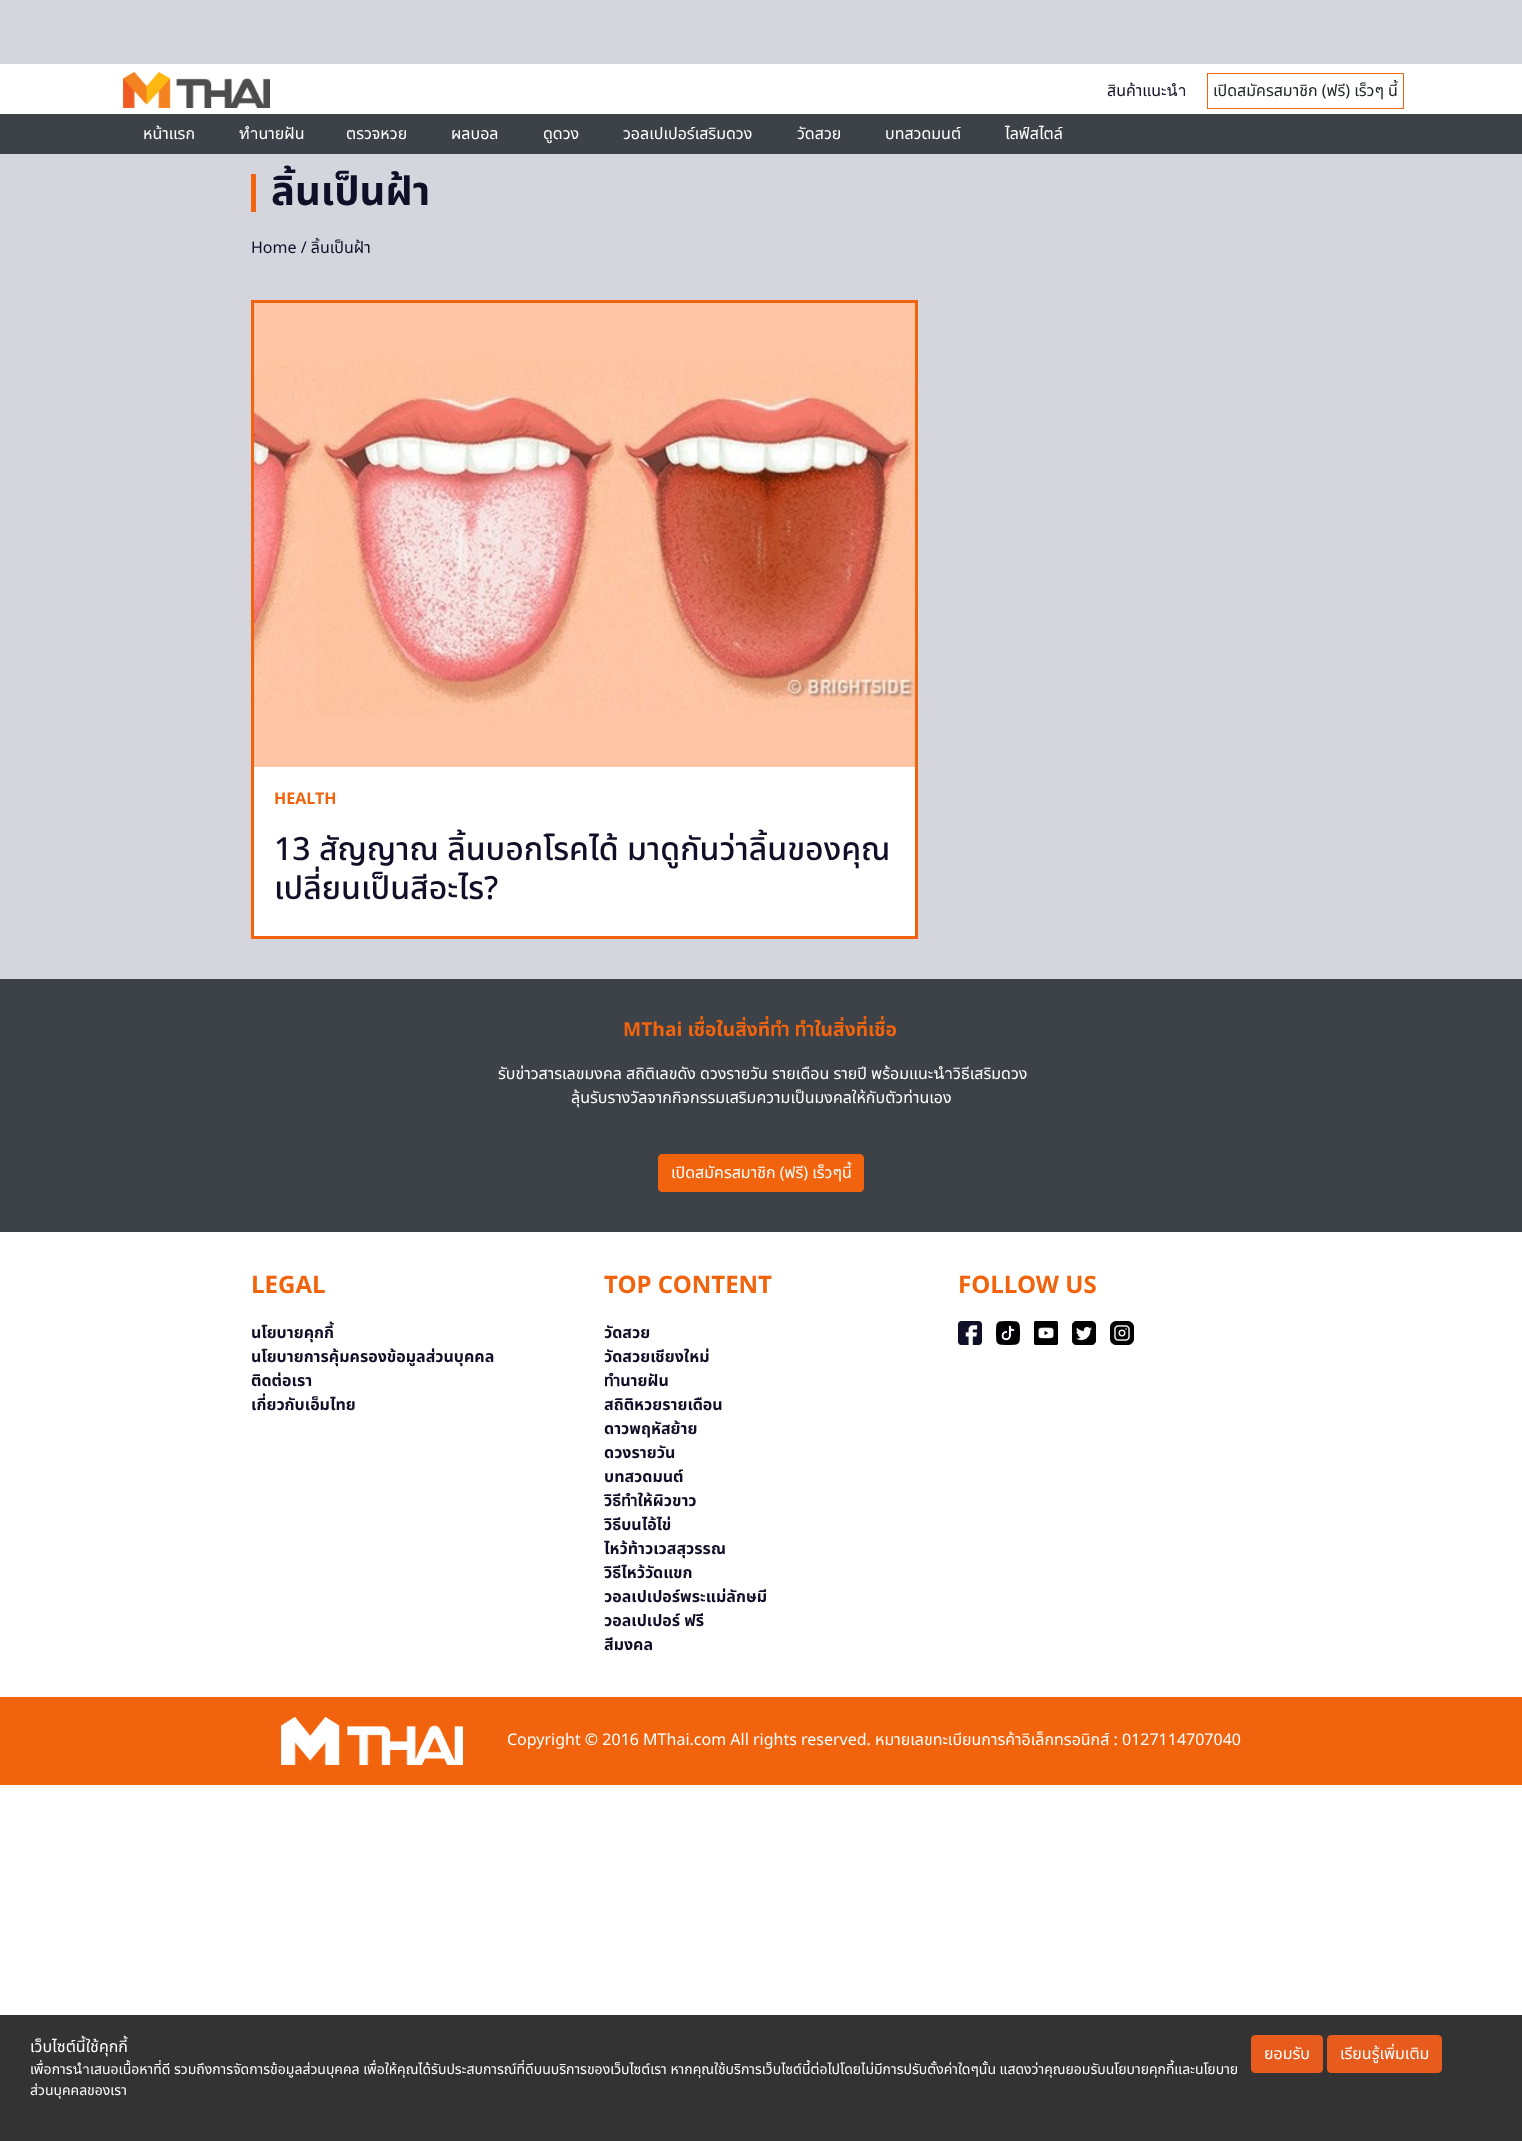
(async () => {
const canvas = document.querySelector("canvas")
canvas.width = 1522
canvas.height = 2141
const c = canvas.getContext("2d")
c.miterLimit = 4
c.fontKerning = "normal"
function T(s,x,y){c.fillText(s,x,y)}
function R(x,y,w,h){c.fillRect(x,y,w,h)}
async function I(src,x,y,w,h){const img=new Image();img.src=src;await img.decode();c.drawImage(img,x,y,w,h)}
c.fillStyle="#fff"
R(0,0,1522,2141)
c.fillStyle="#d5d5dd"
R(0,0,1522,64)
await I("1.png",123,72,147,36)
c.font="16px Noto Sans Thai"
c.fillStyle="#110f27"
T("สินค้าแนะนำ",1107,96)
c.strokeStyle="#f1630d"
c.strokeRect(1207.5,73.5,196,35)
c.fillStyle="#212529"
T("เปิดสมัครสมาชิก (ฟรี) เร็วๆ นี้",1213,96)
c.fillStyle="#3d4248"
R(0,114,1522,40)
c.fillStyle="#fff"
T("หน้าแรก",143,139)
T("ทำนายฝัน",239,139)
T("ตรวจหวย",346,139)
T("ผลบอล",451,139)
T("ดูดวง",543,139)
T("วอลเปเปอร์เสริมดวง",623,139)
T("วัดสวย",797,139)
T("บทสวดมนต์",885,139)
T("ไลฟ์สไตล์",1005,139)
c.fillStyle="#d5d5dd"
R(0,154,1522,825)
c.fillStyle="#f1630d"
R(251,174,5,38)
c.font="bold 40px Noto Sans Thai"
c.fillStyle="#110f27"
T("ลิ้นเป็นฝ้า",271,205)
c.font="16px Noto Sans Thai"
T("Home / ลิ้นเป็นฝ้า",251,253)
c.fillStyle="#fff"
R(254,767,661,169)
c.lineWidth=3
c.strokeRect(252.5,301.5,664,636)
await I("2.png",254,303,661,464)
c.font="bold 16px Noto Sans Thai"
c.fillStyle="#f1630d"
T("HEALTH",274,804)
c.font="500 32px Noto Sans Thai"
c.fillStyle="#110f27"
T("13 สัญญาณ ลิ้นบอกโรคได้ มาดูกันว่าลิ้นของคุณ",274,860)
T("เปลี่ยนเป็นสีอะไร?",274,899)
c.fillStyle="#3d4248"
R(0,979,1522,253)
c.font="bold 19.25px Noto Sans Thai"
c.fillStyle="#f1630d"
T("MThai เชื่อในสิ่งที่ทำ ทำในสิ่งที่เชื่อ",623,1036)
c.font="16px Noto Sans Thai"
c.fillStyle="#fff"
T("รับข่าวสารเลขมงคล สถิติเลขดัง ดวงรายวัน รายเดือน รายปี พร้อมแนะนำวิธีเสริมดวง",498,1079)
T("ลุ้นรับรางวัลจากกิจกรรมเสริมความเป็นมงคลให้กับตัวท่านเอง",571,1103)
c.fillStyle="#f1630d"
c.beginPath()
c.roundRect(658.5,1154.5,205,37,3.5)
c.fill()
c.lineWidth=1
c.stroke()
c.fillStyle="#fff"
T("เปิดสมัครสมาชิก (ฟรี) เร็วๆนี้",671,1178)
c.font="bold 24px Noto Sans Thai"
c.fillStyle="#f1630d"
T("LEGAL",251,1293)
c.font="bold 16px Noto Sans Thai"
c.fillStyle="#110f27"
T("นโยบายคุกกี้",251,1338)
T("นโยบายการคุ้มครองข้อมูลส่วนบุคคล",251,1362)
T("ติดต่อเรา",251,1386)
T("เกี่ยวกับเอ็มไทย",251,1410)
c.font="bold 24px Noto Sans Thai"
c.fillStyle="#f1630d"
T("TOP CONTENT",604,1293)
c.font="bold 16px Noto Sans Thai"
c.fillStyle="#110f27"
T("วัดสวย",604,1338)
T("วัดสวยเชียงใหม่",604,1362)
T("ทำนายฝัน",604,1386)
T("สถิติหวยรายเดือน",604,1410)
T("ดาวพฤหัสย้าย",604,1434)
T("ดวงรายวัน",604,1458)
T("บทสวดมนต์",604,1482)
T("วิธีทำให้ผิวขาว",604,1506)
T("วิธีบนไอ้ไข่",604,1530)
T("ไหว้ท้าวเวสสุวรรณ",604,1554)
T("วิธีไหว้วัดแขก",604,1578)
T("วอลเปเปอร์พระแม่ลักษมี",604,1602)
T("วอลเปเปอร์ ฟรี",604,1626)
T("สีมงคล",604,1650)
c.font="bold 24px Noto Sans Thai"
c.fillStyle="#f1630d"
T("FOLLOW US",958,1293)
await I("3.png",958,1321,24,24)
await I("4.png",996,1321,24,24)
await I("5.png",1034,1321,24,24)
await I("6.png",1072,1321,24,24)
await I("7.png",1110,1321,24,24)
R(0,1697,1522,88)
await I("8.png",281,1717,182,48)
c.font="16px Noto Sans Thai"
c.fillStyle="#fff"
T("Copyright © 2016 MThai.com All rights reserved. หมายเลขทะเบียนการค้าอิเล็กทรอนิกส์ : 0127114707040",507,1745)
c.fillStyle="#333"
R(0,2015,1522,126)
c.fillStyle="#fff"
T("เว็บไซต์นี้ใช้คุกกี้",30,2052)
c.font="14px Noto Sans Thai"
T("เพื่อการนำเสนอเนื้อหาที่ดี รวมถึงการจัดการข้อมูลส่วนบุคคล เพื่อให้คุณได้รับประสบการณ์ที่ดีบนบริการของเว็บไซต์เรา หากคุณใช้บริการเว็บไซต์นี้ต่อไปโดยไม่มีการปรับตั้งค่าใดๆนั้น แสดงว่าคุณยอมรับนโยบายคุกกี้และนโยบาย",30,2074)
T("ส่วนบุคคลของเรา",30,2095)
c.fillStyle="#e75c1d"
c.beginPath()
c.roundRect(1251.5,2035.5,71,37,3.5)
c.fill()
c.strokeStyle="#e75c1d"
c.stroke()
c.font="16px Noto Sans Thai"
c.fillStyle="#fff"
T("ยอมรับ",1264,2059)
c.fillStyle="#e75c1d"
c.beginPath()
c.roundRect(1327.5,2035.5,114,37,3.5)
c.fill()
c.stroke()
c.fillStyle="#fff"
T("เรียนรู้เพิ่มเติม",1340,2059)
})()
